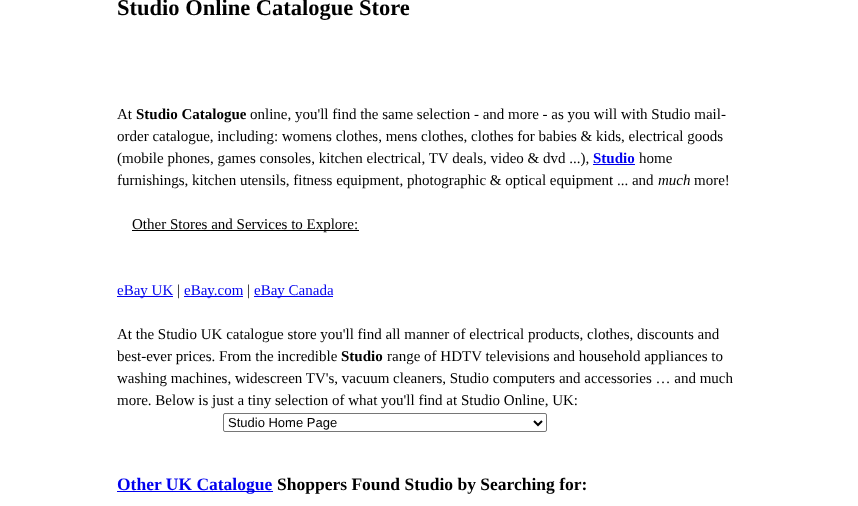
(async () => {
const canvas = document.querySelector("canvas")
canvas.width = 858
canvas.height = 506
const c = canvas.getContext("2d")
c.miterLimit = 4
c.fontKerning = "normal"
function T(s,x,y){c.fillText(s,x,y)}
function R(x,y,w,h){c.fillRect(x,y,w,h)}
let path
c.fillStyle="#fff"
R(0,0,858,506)
c.font="bold 22.5px Liberation Serif"
c.fillStyle="#000"
T("Studio Online Catalogue Store",117,15)
c.font="15px Liberation Serif"
T("At",117,119)
c.font="bold 15px Liberation Serif"
T("Studio Catalogue",136,119)
c.font="15px Liberation Serif"
T("online, you'll find the same selection - and more - as you will with Studio mail-",250,119)
T("order catalogue, including: womens clothes, mens clothes, clothes for babies & kids, electrical goods",117,141)
T("(mobile phones, games consoles, kitchen electrical, TV deals, video & dvd ...),",117,163)
c.font="bold 15px Liberation Serif"
c.fillStyle="#00e"
T("Studio",593,163)
R(593,164,42,1)
c.font="15px Liberation Serif"
c.fillStyle="#000"
T("home",639,163)
T("furnishings, kitchen utensils, fitness equipment, photographic & optical equipment ... and",117,185)
c.font="italic 15px Liberation Serif"
T("much",658,185)
c.font="15px Liberation Serif"
T("more!",694,185)
R(132,230,227,1)
T("Other Stores and Services to Explore:",132,229)
c.fillStyle="#00e"
R(117,296,56,1)
T("eBay UK",117,295)
c.fillStyle="#000"
T("|",177,295)
c.fillStyle="#00e"
R(184,296,59,1)
T("eBay.com",184,295)
c.fillStyle="#000"
T("|",247,295)
c.fillStyle="#00e"
R(254,296,79,1)
T("eBay Canada",254,295)
c.fillStyle="#000"
T("At the Studio UK catalogue store you'll find all manner of electrical products, clothes, discounts and",117,339)
T("best-ever prices. From the incredible",117,361)
c.font="bold 15px Liberation Serif"
T("Studio",341,361)
c.font="15px Liberation Serif"
T("range of HDTV televisions and household appliances to",387,361)
T("washing machines, widescreen TV's, vacuum cleaners, Studio computers and accessories … and much",117,383)
T("more. Below is just a tiny selection of what you'll find at Studio Online, UK:",117,405)
c.beginPath()
c.roundRect(223.5,413.5,323,18,1.5)
c.strokeStyle="#767676"
c.stroke()
path = new Path2D("M534 421l4 4l4-4")
c.strokeStyle="#000"
c.lineWidth=2
c.stroke(path)
c.font="13px Liberation Sans"
T("Studio Home Page",228,427)
c.fillStyle="#00e"
R(117,491,156,1)
c.font="bold 17.5px Liberation Serif"
T("Other UK Catalogue",117,490)
c.fillStyle="#000"
T("Shoppers Found Studio by Searching for:",277,490)
})()
